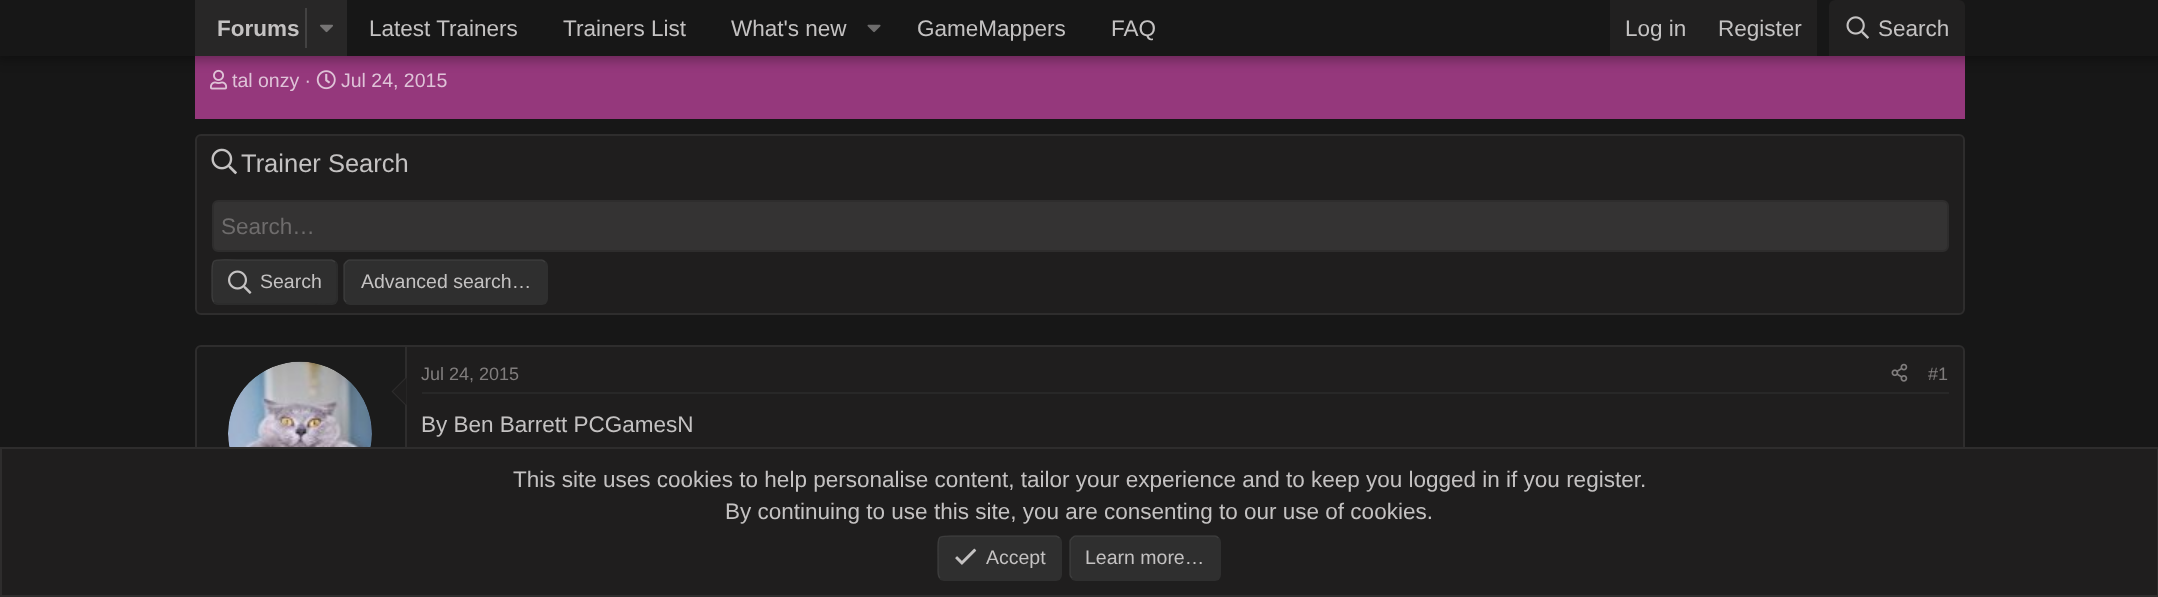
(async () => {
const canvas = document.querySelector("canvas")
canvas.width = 2158
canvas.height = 597
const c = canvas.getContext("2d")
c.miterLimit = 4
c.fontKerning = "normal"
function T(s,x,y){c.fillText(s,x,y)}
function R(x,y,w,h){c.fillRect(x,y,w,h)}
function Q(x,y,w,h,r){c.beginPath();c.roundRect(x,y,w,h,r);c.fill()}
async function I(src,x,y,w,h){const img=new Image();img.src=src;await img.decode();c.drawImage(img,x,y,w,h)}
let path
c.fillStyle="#171717"
R(0,0,2158,597)
c.fillStyle="#95387c"
R(195,56,1770,63)
await I("4.png",210,69,18,21)
await I("5.png",316,70,20,20)
c.fillStyle="#0000004d"
c.filter="blur(6px)"
c.beginPath()
c.rect(-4,-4,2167,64)
c.fill()
c.filter="none"
c.fillStyle="#171717"
R(0,0,2158,56)
c.fillStyle="#282727"
R(195,0,152,56)
c.font="bold 22.5px Liberation Sans"
c.fillStyle="#c4c2c2"
T("Forums",217,36)
c.fillStyle="#434242"
R(305,8,2,40)
await I("1.png",320,24,13,9)
c.font="22.5px Liberation Sans"
c.fillStyle="#c4c2c2"
T("Latest Trainers",369,36)
T("Trainers List",563,36)
T("What's new",731,36)
await I("2.png",867,24,14,9)
T("GameMappers",917,36)
T("FAQ",1111,36)
c.fillStyle="#212020"
R(1610,0,207,56)
c.fillStyle="#c4c2c2"
T("Log in",1625,36)
T("Register",1718,36)
c.fillStyle="#212020"
c.beginPath()
c.roundRect(1829,0,136,56,[6,6,0,0])
c.fill()
await I("3.png",1846,16,23,23)
c.fillStyle="#c4c2c2"
T("Search",1878,36)
c.font="19.5px Liberation Sans"
c.fillStyle="#dfc3d8"
T("tal onzy ·",232,87)
T("Jul 24, 2015",341,87)
c.fillStyle="#1f1e1e"
c.beginPath()
c.roundRect(196,135,1768,179,5)
c.fill()
c.strokeStyle="#2e2d2d"
c.lineWidth=2
c.stroke()
await I("6.png",211,148,26,27)
c.font="25.5px Liberation Sans"
c.fillStyle="#c4c2c2"
T("Trainer Search",241,172)
c.fillStyle="#343333"
c.beginPath()
c.roundRect(213,201,1735,50,5)
c.fill()
c.stroke()
c.font="22.5px Liberation Sans"
c.fillStyle="#6e6c6c"
T("Search…",221,234)
c.fillStyle="#2f2f2f"
Q(212,260,126,45,6)
path = new Path2D("M335 262c2.5 2 2 6 2 9v11c0 26 3 22-24.5 22h-95c-1.5-.5-2.5-1-3.5-2")
c.strokeStyle="#2c2c2c"
c.lineWidth=1.5
c.stroke(path)
path = new Path2D("M214 302c-2.5-2-2-6-2-9v-11c0-26-3-22 24.5-22h95c1.5 .5 2.5 1 3.5 2")
c.strokeStyle="#454545a6"
c.stroke(path)
await I("7.png",228,270,24,24)
c.font="19.5px Liberation Sans"
c.fillStyle="#c4c2c2"
T("Search",260,288)
c.fillStyle="#2f2f2f"
Q(344,260,204,45,6)
path = new Path2D("M346 302c-1-1-2-2-2-3.5v-33c0-1.5 1-2.5 2-3.5c1-1 2-2 3.5-2h192c1.5 0 2.5 1 3.5 2")
c.stroke(path)
c.fillStyle="#c4c2c2"
T("Advanced search…",361,288)
c.fillStyle="#1f1e1e"
c.beginPath()
c.roundRect(196,346,1768,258,5)
c.fill()
c.strokeStyle="#2e2d2d"
c.lineWidth=2
c.stroke()
c.fillStyle="#1b1b1b"
path = new Path2D("M202 347h205v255h-205c-3 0-5-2-5-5v-245c0-3 2-5 5-5z")
c.fill(path)
c.fillStyle="#2e2d2d"
R(405,347,2,100)
c.fillStyle="#1f1e1e"
c.beginPath()
c.arc(300,434,72,0,7)
c.fill()
await I("8.png",228,361,144,86)
c.fillStyle="#2e2d2d"
path = new Path2D("M406.5 376.5v30l-15-15z")
c.fill(path)
c.fillStyle="#1f1e1e"
path = new Path2D("M406.5 378v27l-13.5-13.5z")
c.fill(path)
c.fillStyle="#282828"
R(422,392,1527,2)
c.font="18px Liberation Sans"
c.fillStyle="#807d7d"
T("Jul 24, 2015",421,380)
await I("9.png",1891,363,17,19)
T("#1",1928,380)
c.font="22.5px Liberation Sans"
c.fillStyle="#c4c2c2"
T("By Ben Barrett PCGamesN",421,432)
c.fillStyle="#1f1e1e"
c.beginPath()
c.rect(1,448,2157,148)
c.fill()
c.stroke()
c.fillStyle="#c4c2c2"
T("This site uses cookies to help personalise content, tailor your experience and to keep you logged in if you register.",513,487)
T("By continuing to use this site, you are consenting to our use of cookies.",725,519)
c.fillStyle="#2f2f2f"
Q(938,536,124,45,6)
path = new Path2D("M940 578c-2.5-2-2-6-2-9v-11c0-25.5-3-22 24-22h94c1.5 .5 2.5 1 3.5 2")
c.strokeStyle="#454545a6"
c.lineWidth=1.5
c.stroke(path)
await I("10.png",955,548,22,17)
c.font="19.5px Liberation Sans"
c.fillStyle="#c4c2c2"
T("Accept",986,564)
c.fillStyle="#2f2f2f"
Q(1070,536,151,45,6)
path = new Path2D("M1072 578c-1-1-2-2-2-3.5v-33c0-1.5 1-2.5 2-3.5c1-1 2-2 3.5-2h139.5c1.5 0 2.5 1 3.5 2")
c.stroke(path)
c.fillStyle="#c4c2c2"
T("Learn more…",1085,564)
})()
